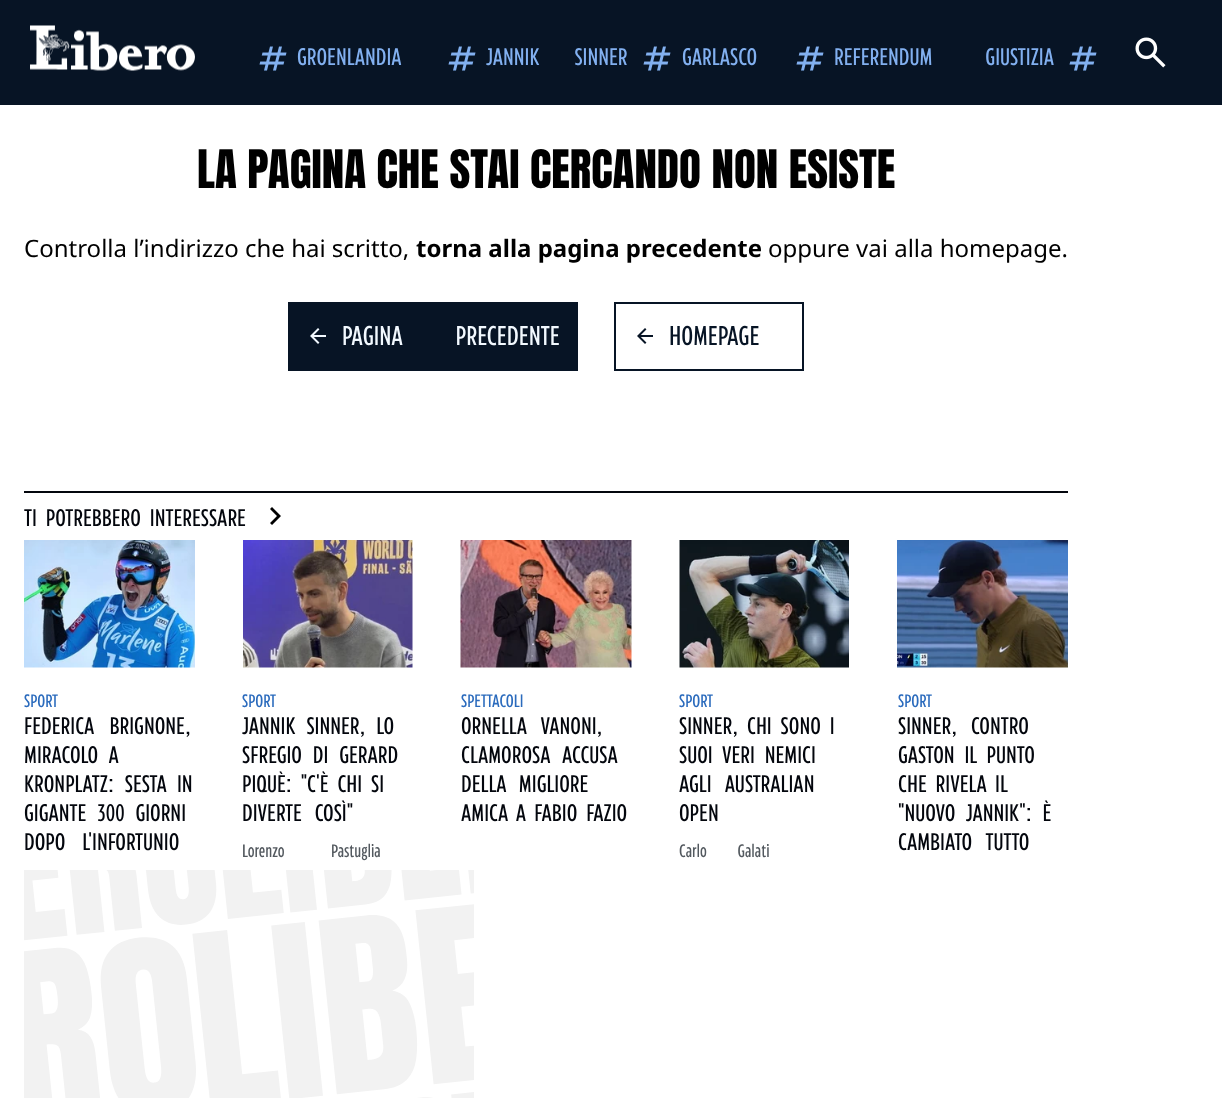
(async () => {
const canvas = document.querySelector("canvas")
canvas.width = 1222
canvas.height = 1098
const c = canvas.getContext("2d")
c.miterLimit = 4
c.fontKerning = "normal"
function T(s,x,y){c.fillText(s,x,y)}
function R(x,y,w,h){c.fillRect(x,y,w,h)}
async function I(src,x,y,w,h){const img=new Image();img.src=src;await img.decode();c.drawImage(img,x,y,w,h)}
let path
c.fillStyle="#fff"
R(0,0,1222,1098)
c.fillStyle="#071425"
R(0,0,1222,105)
await I("1.png",30,25,165,46)
await I("2.png",259,46,28,25)
c.font="italic 24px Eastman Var"
c.fillStyle="#82b0f0"
T("GROENLANDIA",297,65)
await I("2.png",448,46,28,25)
c.wordSpacing="30px"
T("JANNIK SINNER",486,65)
await I("2.png",643,46,28,25)
c.wordSpacing="0px"
T("GARLASCO",682,65)
await I("2.png",796,46,28,25)
c.wordSpacing="48px"
T("REFERENDUM GIUSTIZIA",834,65)
await I("2.png",1069,46,28,25)
await I("3.png",1135,37,31,31)
c.wordSpacing="0px"
c.font="45px Anton"
c.fillStyle="#000"
T("LA PAGINA CHE STAI CERCANDO NON ESISTE",197,188)
c.font="24px Noto Sans"
T("Controlla l’indirizzo che hai scritto,",24,257)
c.font="bold 24px Noto Sans"
T("torna alla pagina precedente",416,257)
c.font="24px Noto Sans"
T("oppure vai alla homepage.",768,257)
c.fillStyle="#071425"
R(288,302,290,69)
await I("4.png",310,328,16,16)
c.wordSpacing="48px"
c.font="italic 27px Eastman Var"
c.fillStyle="#f2f9ff"
T("PAGINA PRECEDENTE",342,345)
c.strokeStyle="#071425"
c.lineWidth=2
c.strokeRect(615,303,188,67)
await I("5.png",637,328,16,16)
c.wordSpacing="0px"
c.fillStyle="#071425"
T("HOMEPAGE",669,345)
c.fillStyle="#03060d"
R(24,491,1044,2)
c.wordSpacing="4px"
c.font="italic 24px Eastman Var"
T("TI POTREBBERO INTERESSARE",24,526)
c.fillStyle="#000"
path = new Path2D("M277 516l-7-7l2-2l9 9l-9 9l-2-2z")
c.fill(path,"evenodd")
await I("6.png",24,540,171,128)
c.wordSpacing="0px"
c.font="italic 18px Eastman Var"
c.fillStyle="#2b6bbd"
T("SPORT",24,707)
c.wordSpacing="11px"
c.font="italic 24px Eastman Var"
c.fillStyle="#03060d"
T("FEDERICA BRIGNONE,",24,734)
c.wordSpacing="6px"
T("MIRACOLO A",24,763)
T("KRONPLATZ: SESTA IN",24,792)
T("GIGANTE 300 GIORNI",24,821)
c.wordSpacing="12px"
T("DOPO L'INFORTUNIO",24,850)
await I("7.png",243,540,170,128)
c.wordSpacing="0px"
c.font="italic 18px Eastman Var"
c.fillStyle="#2b6bbd"
T("SPORT",242,707)
c.wordSpacing="6px"
c.font="italic 24px Eastman Var"
c.fillStyle="#03060d"
T("JANNIK SINNER, LO",242,734)
T("SFREGIO DI GERARD",242,763)
c.wordSpacing="4px"
T("PIQUÈ: \"C'È CHI SI",242,792)
c.wordSpacing="8px"
T("DIVERTE COSÌ\"",242,821)
c.wordSpacing="43px"
c.font="italic 18px Eastman Var"
c.fillStyle="#53595f"
T("Lorenzo Pastuglia",242,857)
await I("8.png",460,540,172,128)
c.wordSpacing="0px"
c.fillStyle="#2b6bbd"
T("SPETTACOLI",461,707)
c.wordSpacing="10px"
c.font="italic 24px Eastman Var"
c.fillStyle="#03060d"
T("ORNELLA VANONI,",461,734)
c.wordSpacing="8px"
T("CLAMOROSA ACCUSA",461,763)
T("DELLA MIGLIORE",461,792)
c.wordSpacing="4px"
T("AMICA A FABIO FAZIO",461,821)
await I("9.png",679,540,170,128)
c.wordSpacing="0px"
c.font="italic 18px Eastman Var"
c.fillStyle="#2b6bbd"
T("SPORT",679,707)
c.wordSpacing="4px"
c.font="italic 24px Eastman Var"
c.fillStyle="#03060d"
T("SINNER, CHI SONO I",679,734)
c.wordSpacing="5px"
T("SUOI VERI NEMICI",679,763)
c.wordSpacing="9px"
T("AGLI AUSTRALIAN",679,792)
c.wordSpacing="0px"
T("OPEN",679,821)
c.wordSpacing="27px"
c.font="italic 18px Eastman Var"
c.fillStyle="#53595f"
T("Carlo Galati",679,857)
await I("10.png",897,540,171,128)
c.wordSpacing="0px"
c.fillStyle="#2b6bbd"
T("SPORT",898,707)
c.wordSpacing="9px"
c.font="italic 24px Eastman Var"
c.fillStyle="#03060d"
T("SINNER, CONTRO",898,734)
c.wordSpacing="5px"
T("GASTON IL PUNTO",898,763)
c.wordSpacing="4px"
T("CHE RIVELA IL",898,792)
c.wordSpacing="6px"
T("\"NUOVO JANNIK\": È",898,821)
c.wordSpacing="9px"
T("CAMBIATO TUTTO",898,850)
await I("11.png",24,870,450,228)
})()
